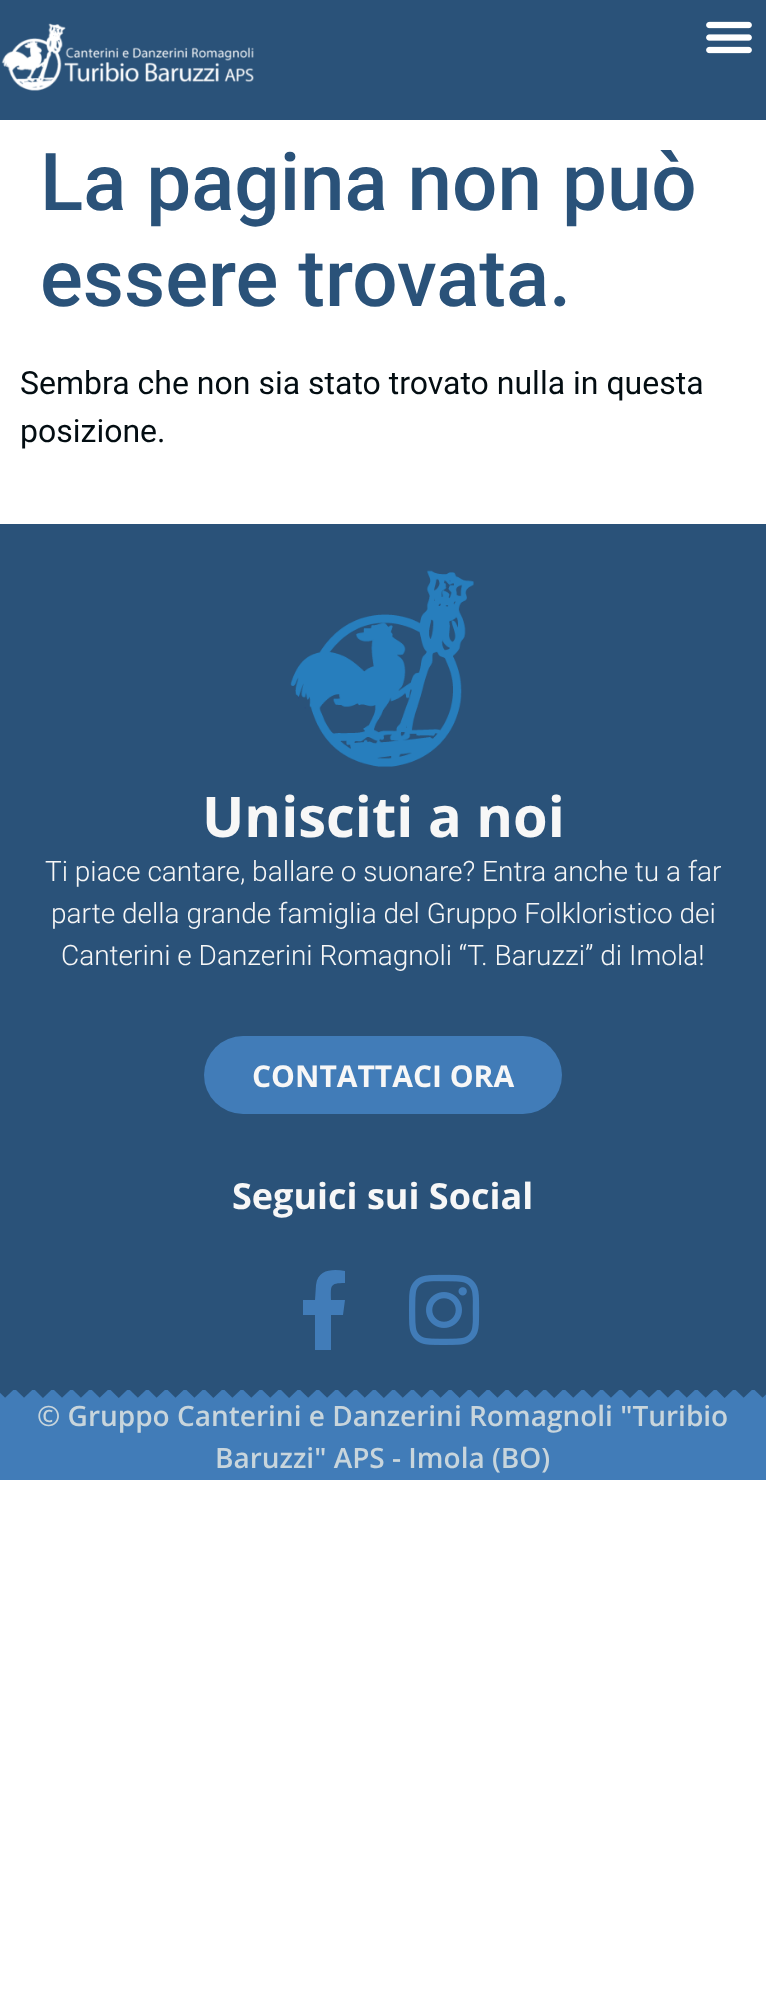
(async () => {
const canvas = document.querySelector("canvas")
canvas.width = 766
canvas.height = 1991
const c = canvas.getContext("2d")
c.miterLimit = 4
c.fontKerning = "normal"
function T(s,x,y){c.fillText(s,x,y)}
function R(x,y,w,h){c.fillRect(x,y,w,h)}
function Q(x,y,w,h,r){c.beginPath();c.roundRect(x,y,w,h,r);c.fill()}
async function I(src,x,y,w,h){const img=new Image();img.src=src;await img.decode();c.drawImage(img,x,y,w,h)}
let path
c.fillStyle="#fff"
R(0,0,766,1991)
c.fillStyle="#2a5279"
R(0,0,766,120)
await I("1.png",1,23,253,68)
await I("2.png",706,21,46,33)
c.font="500 80px Roboto"
T("La pagina non può",40,210)
T("essere trovata.",40,306)
c.font="32px Roboto"
c.fillStyle="#030d12"
T("Sembra che non sia stato trovato nulla in questa",20,394)
T("posizione.",20,442)
c.fillStyle="#2a5279"
R(0,524,766,866)
await I("3.png",290,570,184,197)
c.font="bold 56px Open Sans"
c.fillStyle="#f7f7f7"
T("Unisciti a noi",202,837)
c.font="300 28px Roboto"
T("Ti piace cantare, ballare o suonare? Entra anche tu a far",45,881)
T("parte della grande famiglia del Gruppo Folkloristico dei",51,923)
T("Canterini e Danzerini Romagnoli “T. Baruzzi” di Imola!",61,965)
c.fillStyle="#417cb8"
Q(204,1036,358,78,39)
c.font="bold 30px Open Sans"
c.fillStyle="#f7f7f7"
T("CONTATTACI ORA",252,1087)
c.font="bold 36px Open Sans"
T("Seguici sui Social",232,1209)
c.fillStyle="#417cb8"
path = new Path2D("M343 1315h-12v35h-16v-35h-12v-15h12l1-15c2-16 17-16 29-14v12c-16 0-14 3-14 17h14z")
c.fill(path)
await I("4.png",409,1274,71,71)
R(0,1390,766,90)
await I("5.png",0,1390,766,8)
c.font="600 28px Open Sans"
c.fillStyle="#c8d5dc"
T("© Gruppo Canterini e Danzerini Romagnoli \"Turibio",37,1426)
T("Baruzzi\" APS - Imola (BO)",215,1468)
})()
